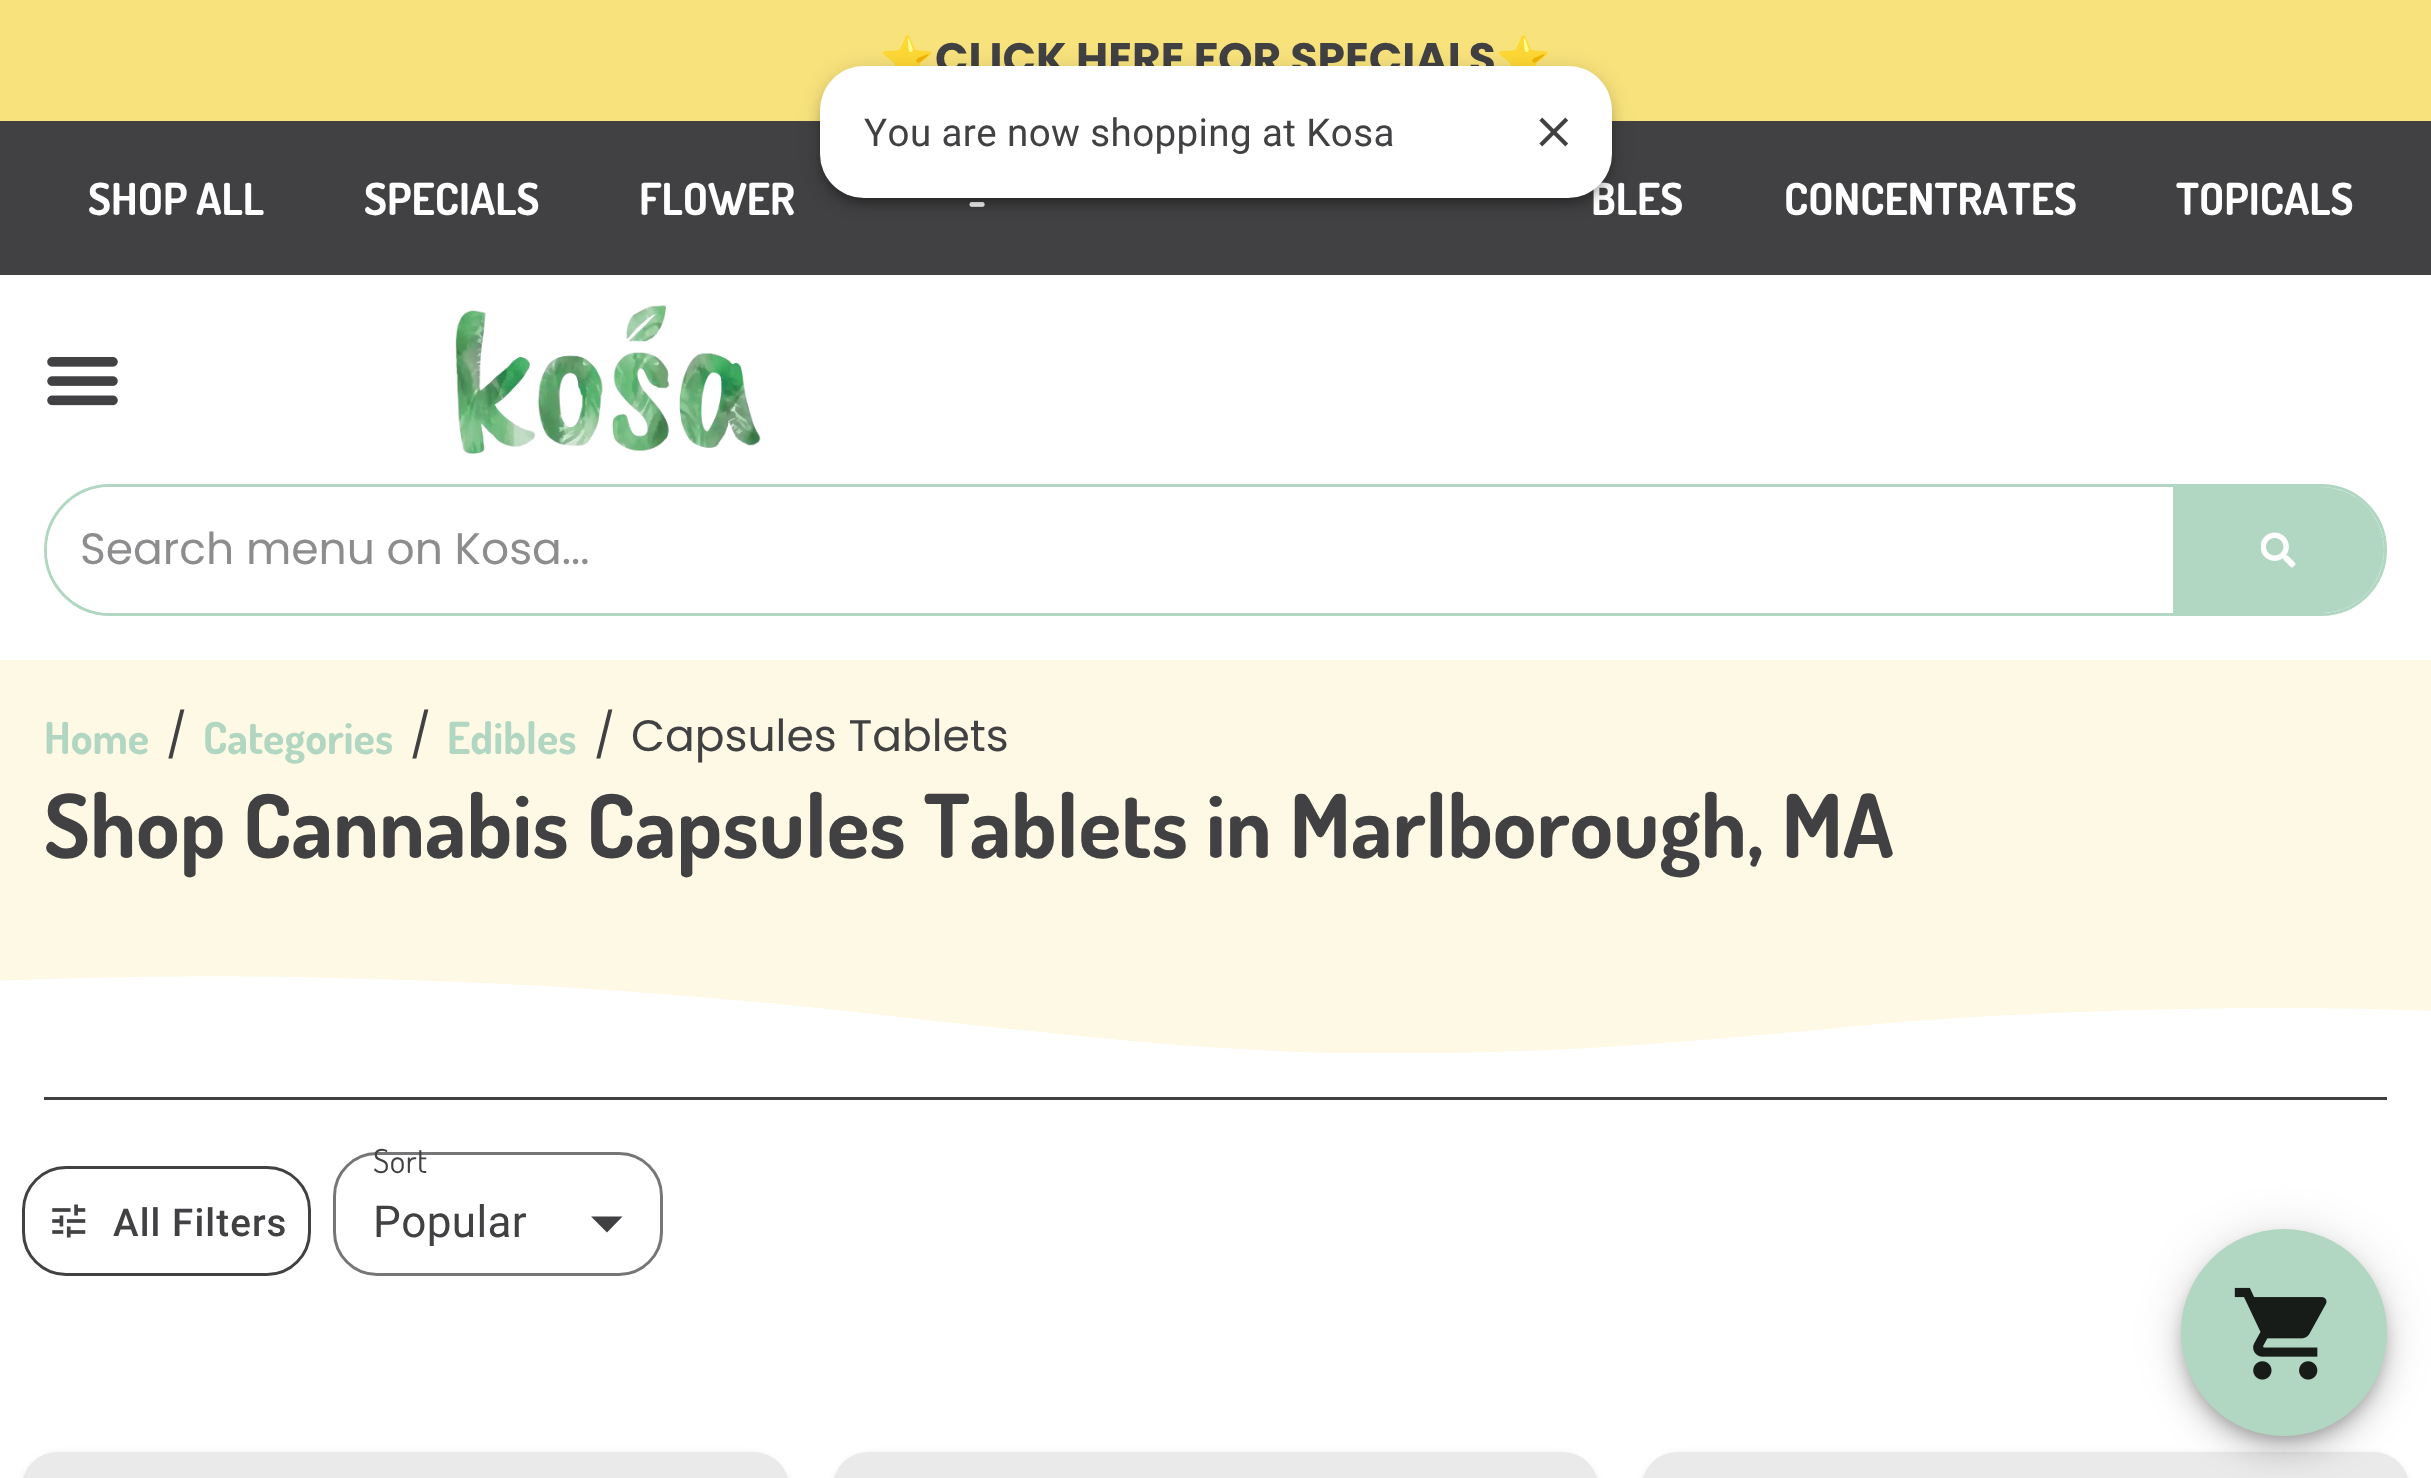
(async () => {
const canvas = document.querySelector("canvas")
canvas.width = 2431
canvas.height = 1478
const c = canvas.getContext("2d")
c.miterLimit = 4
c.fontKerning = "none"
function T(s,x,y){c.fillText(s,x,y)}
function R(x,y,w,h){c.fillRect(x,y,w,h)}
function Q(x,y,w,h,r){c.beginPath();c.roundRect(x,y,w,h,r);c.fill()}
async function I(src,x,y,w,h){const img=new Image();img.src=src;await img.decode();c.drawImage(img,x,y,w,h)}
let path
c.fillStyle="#fff"
R(0,0,2431,1478)
c.fillStyle="#f7e27c"
R(0,0,2431,121)
c.font="bold 44px Noto Color Emoji"
c.fillStyle="#414042"
T("⭐",880,74)
c.font="bold 44px Poppins"
T("CLICK HERE FOR SPECIALS",935,74)
c.font="bold 44px Noto Color Emoji"
T("⭐",1496,74)
R(0,121,2431,154)
c.font="bold 44px Dosis"
c.fillStyle="#fff"
T("SHOP ALL",88,215)
T("SPECIALS",364,215)
T("FLOWER",639,215)
T("-",968,215)
T("BLES",1591,215)
T("CONCENTRATES",1784,215)
T("TOPICALS",2176,215)
await I("1.png",47,357,71,49)
await I("2.png",455,305,306,149)
c.beginPath()
c.roundRect(45.5,485.5,2340,129,64.5)
c.strokeStyle="#b1d6c1"
c.lineWidth=3
c.stroke()
c.beginPath()
c.roundRect(47,487,2126,126,[63,44,44,63])
c.fill()
c.font="44px Poppins"
c.fillStyle="#8d8c8e"
T("Search menu on Kosa...",80,564)
c.fillStyle="#b1d6c1"
c.beginPath()
c.roundRect(2173,487,211,126,[0,63,63,0])
c.fill()
await I("3.png",2261,532,35,36)
c.fillStyle="#0000001f"
c.filter="blur(11px)"
c.beginPath()
c.roundRect(820,69,792,132,44)
c.fill()
c.filter="none"
c.fillStyle="#00000024"
c.filter="blur(5.5px)"
c.beginPath()
c.roundRect(820,74,792,132,44)
c.fill()
c.filter="none"
c.fillStyle="#00000033"
c.filter="blur(4px)"
c.beginPath()
c.roundRect(825,80,781,121,39)
c.fill()
c.filter="none"
c.fillStyle="#fff"
Q(820,66,792,132,44)
c.letterSpacing="0.4px"
c.font="38.5px Roboto"
c.fillStyle="#414042"
T("You are now shopping at Kosa",864,146)
await I("4.png",1539,117,30,30)
c.fillStyle="#0000001f"
c.filter="blur(4px)"
c.beginPath()
c.roundRect(1642,1455,767,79,44)
c.fill()
c.filter="none"
c.fillStyle="#fff"
Q(1642,1452,767,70,44)
c.fillStyle="#4140421c"
Q(1642,1452,767,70,44)
c.fillStyle="#0000001f"
c.filter="blur(25px)"
c.beginPath()
c.roundRect(2181,1232,206,206,103)
c.fill()
c.filter="none"
c.fillStyle="#00000024"
c.filter="blur(14px)"
c.beginPath()
c.roundRect(2181,1246,206,206,103)
c.fill()
c.filter="none"
c.fillStyle="#00000033"
c.filter="blur(7px)"
c.beginPath()
c.roundRect(2184,1240,200,201,100)
c.fill()
c.filter="none"
c.fillStyle="#b1d6c1"
Q(2181,1229,206,207,103)
await I("5.png",2234,1287,93,93)
c.fillStyle="#fdf9e5"
R(0,660,2431,393)
c.letterSpacing="0px"
c.font="bold 44px Dosis"
c.fillStyle="#b1d6c1"
T("Home",44,754)
c.font="44px Poppins"
c.fillStyle="#414042"
T("/",166,751)
c.font="bold 44px Dosis"
c.fillStyle="#b1d6c1"
T("Categories",203,754)
c.font="44px Poppins"
c.fillStyle="#414042"
T("/",410,751)
c.font="bold 44px Dosis"
c.fillStyle="#b1d6c1"
T("Edibles",447,754)
c.font="44px Poppins"
c.fillStyle="#414042"
T("/",594,751)
T("Capsules Tablets",631,751)
c.font="bold 88px Dosis"
T("Shop Cannabis Capsules Tablets in Marlborough, MA",44,858)
c.save()
c.beginPath()
c.rect(0,974,2431,82)
c.clip()
c.fillStyle="#fff"
path = new Path2D("M1453 1053c-69 2-157 0-230-5c-71-4-215-19-305-29c-231-27-407-37-586-41c-72-2-148-3-315 2c-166 5-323 21-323 21v57h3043v-25c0 0-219-27-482-25c-120 1-283 6-408 19c-64 6-159 15-242 20c-83 5-121 5-152 6z")
c.fill(path)
c.restore()
R(44,1097,2343,3)
c.beginPath()
c.roundRect(23.5,1167.5,286,107,42.5)
c.strokeStyle="#414042"
c.stroke()
await I("6.png",52,1204,34,34)
c.letterSpacing="1.1px"
c.font="500 38.5px Roboto"
T("All Filters",113,1236)
path = new Path2D("M591 1216.5l16 16l15.5-16z")
c.fill(path)
c.beginPath()
c.roundRect(334.5,1153.5,327,121,42.5)
c.strokeStyle="#767577"
c.stroke()
c.letterSpacing="0.5px"
c.font="33px Dosis"
T("Sort",373,1173)
c.letterSpacing="0.4px"
c.font="44px Roboto"
T("Popular",373,1237)
c.fillStyle="#0000001f"
c.filter="blur(4px)"
c.beginPath()
c.roundRect(22,1455,767,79,44)
c.fill()
c.filter="none"
c.fillStyle="#fff"
Q(22,1452,767,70,44)
c.fillStyle="#4140421c"
Q(22,1452,767,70,44)
c.fillStyle="#0000001f"
c.filter="blur(4px)"
c.beginPath()
c.roundRect(833,1455,765,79,44)
c.fill()
c.filter="none"
c.fillStyle="#fff"
Q(833,1452,765,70,44)
c.fillStyle="#4140421c"
Q(833,1452,765,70,44)
})()
